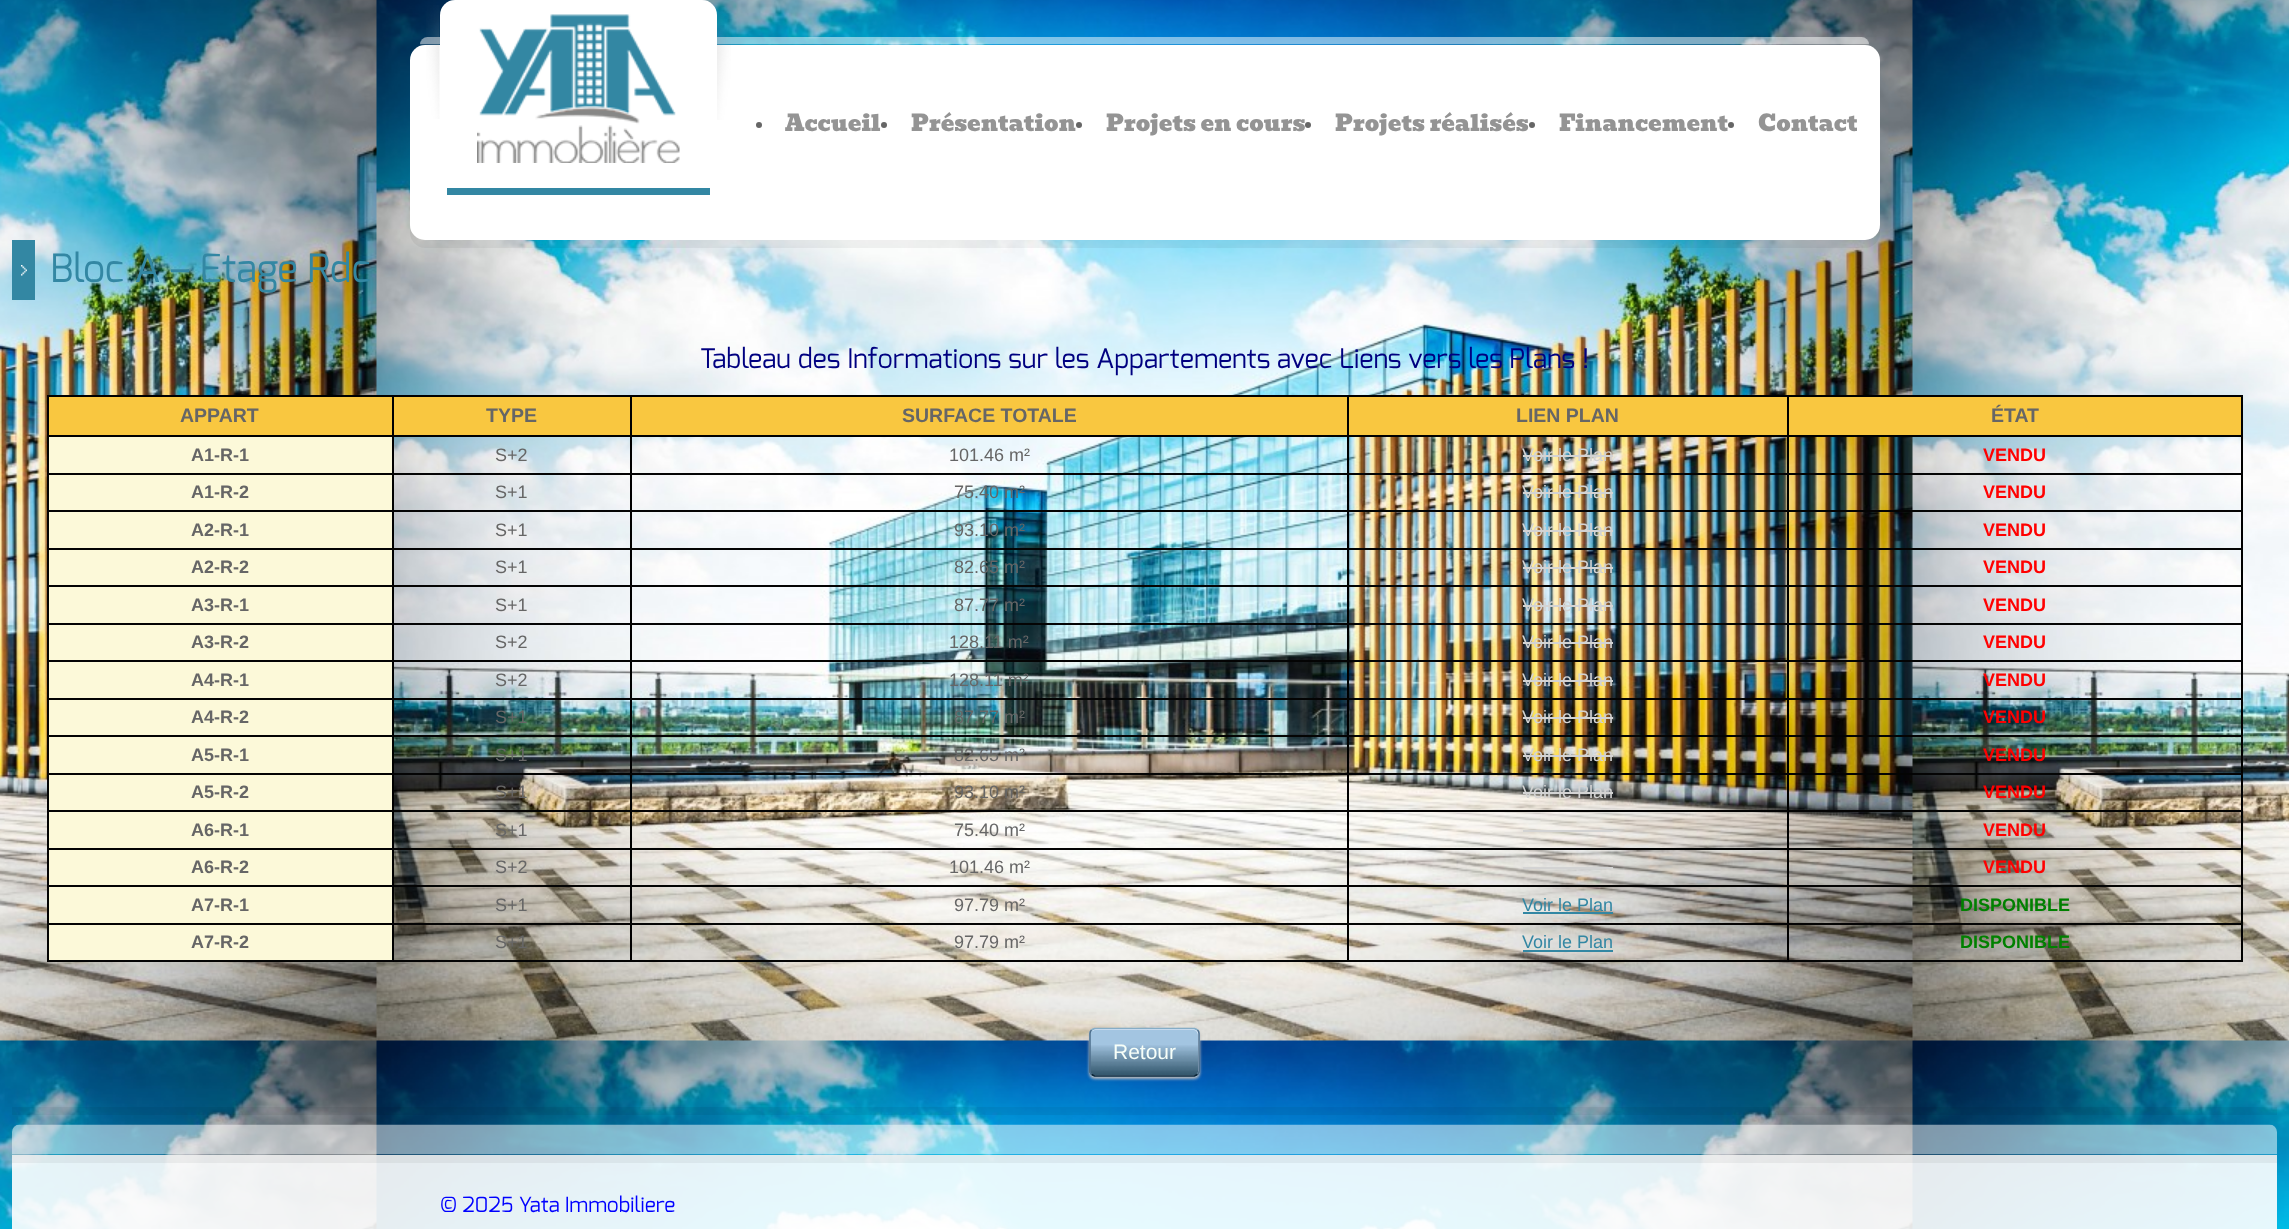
(async () => {
const canvas = document.querySelector("canvas")
canvas.width = 2289
canvas.height = 1229
const c = canvas.getContext("2d")
c.miterLimit = 4
c.fontKerning = "normal"
function T(s,x,y){c.fillText(s,x,y)}
function R(x,y,w,h){c.fillRect(x,y,w,h)}
function Q(x,y,w,h,r){c.beginPath();c.roundRect(x,y,w,h,r);c.fill()}
async function I(src,x,y,w,h){const img=new Image();img.src=src;await img.decode();c.drawImage(img,x,y,w,h)}
let path
c.fillStyle="#fff"
R(0,0,2289,1229)
await I("1.png",0,0,2289,1229)
await I("2.png",420,37,1449,8)
c.fillStyle="#0000000d"
path = new Path2D("M410 229v4c0 8 7 15 15 15h1440c8 0 15-7 15-15v-165v-4v161c0 8-7 15-16 15h-1440c-6 0-12-5-14-11z")
c.fill(path)
c.fillStyle="#fff"
Q(410,45,1470,195,15)
await I("3.png",426,5,14,114)
c.fillStyle="#3387a3"
R(447,188,263,7)
c.fillStyle="#fff"
Q(440,0,277,188,15)
await I("4.png",477,14,203,149)
await I("5.png",717,7,14,113)
c.fillStyle="#666"
c.beginPath()
c.arc(759,125,3,0,7)
c.fill()
c.font="22.5px Bevan"
c.fillStyle="#949494"
T("Accueil",785,131)
c.fillStyle="#666"
c.beginPath()
c.arc(884,125,3,0,7)
c.fill()
c.fillStyle="#949494"
T("Présentation",911,131)
c.fillStyle="#666"
c.beginPath()
c.arc(1079,125,3,0,7)
c.fill()
c.fillStyle="#949494"
T("Projets en cours",1106,131)
c.fillStyle="#666"
c.beginPath()
c.arc(1308,125,3,0,7)
c.fill()
c.fillStyle="#949494"
T("Projets réalisés",1335,131)
c.fillStyle="#666"
c.beginPath()
c.arc(1532,125,3,0,7)
c.fill()
c.fillStyle="#949494"
T("Financement",1559,131)
c.fillStyle="#666"
c.beginPath()
c.arc(1731,125,3,0,7)
c.fill()
c.fillStyle="#949494"
T("Contact",1758,131)
c.fillStyle="#0000000d"
R(12,1107,2265,8)
c.fillStyle="#3387a3"
R(12,240,23,60)
await I("6.png",21,265,6,11)
c.font="39px Exo"
T("Bloc A – Etage Rdc",50,282)
c.font="27px Exo"
c.fillStyle="#000080"
T("Tableau des Informations sur les Appartements avec Liens vers les Plans !",700,368)
c.fillStyle="#f9c740"
R(49,397,343,38)
c.fillStyle="#000"
R(47,395,2196,2)
R(392,435,1851,2)
R(2241,473,2,489)
R(2241,435,2,39)
c.fillStyle="#040404"
R(1787,960,456,2)
c.fillStyle="#000"
R(1787,923,2,39)
c.fillStyle="#040404"
R(1787,923,456,2)
c.fillStyle="#000"
R(1787,885,2,39)
c.fillStyle="#040404"
R(1787,885,456,2)
c.fillStyle="#000"
R(1787,848,2,39)
c.fillStyle="#040404"
R(1787,848,456,2)
c.fillStyle="#000"
R(1787,810,2,39)
c.fillStyle="#040404"
R(1787,810,456,2)
c.fillStyle="#000"
R(1787,773,2,39)
c.fillStyle="#040404"
R(1787,773,456,2)
c.fillStyle="#000"
R(1787,735,2,39)
c.fillStyle="#040404"
R(1787,735,456,2)
c.fillStyle="#000"
R(1787,698,2,39)
c.fillStyle="#040404"
R(1787,698,456,2)
c.fillStyle="#000"
R(1787,660,2,39)
c.fillStyle="#040404"
R(1787,660,456,2)
c.fillStyle="#000"
R(1787,623,2,39)
c.fillStyle="#040404"
R(1787,623,456,2)
c.fillStyle="#000"
R(1787,585,2,39)
c.fillStyle="#040404"
R(1787,585,456,2)
c.fillStyle="#000"
R(1787,548,2,39)
c.fillStyle="#040404"
R(1787,548,456,2)
c.fillStyle="#000"
R(1787,510,2,39)
c.fillStyle="#040404"
R(1787,510,456,2)
c.fillStyle="#000"
R(1787,473,2,39)
c.fillStyle="#040404"
R(1787,473,456,2)
c.fillStyle="#000"
R(1787,435,2,39)
c.fillStyle="#040404"
R(1347,960,441,2)
c.fillStyle="#000"
R(1347,923,2,39)
c.fillStyle="#040404"
R(1347,923,441,2)
c.fillStyle="#000"
R(1347,885,2,39)
c.fillStyle="#040404"
R(1347,885,441,2)
c.fillStyle="#000"
R(1347,848,2,39)
c.fillStyle="#040404"
R(1347,848,441,2)
c.fillStyle="#000"
R(1347,810,2,39)
c.fillStyle="#040404"
R(1347,810,441,2)
c.fillStyle="#000"
R(1347,773,2,39)
c.fillStyle="#040404"
R(1347,773,441,2)
c.fillStyle="#000"
R(1347,735,2,39)
c.fillStyle="#040404"
R(1347,735,441,2)
c.fillStyle="#000"
R(1347,698,2,39)
c.fillStyle="#040404"
R(1347,698,441,2)
c.fillStyle="#000"
R(1347,660,2,39)
c.fillStyle="#040404"
R(1347,660,441,2)
c.fillStyle="#000"
R(1347,623,2,39)
c.fillStyle="#040404"
R(1347,623,441,2)
c.fillStyle="#000"
R(1347,585,2,39)
c.fillStyle="#040404"
R(1347,585,441,2)
c.fillStyle="#000"
R(1347,548,2,39)
c.fillStyle="#040404"
R(1347,548,441,2)
c.fillStyle="#000"
R(1347,510,2,39)
c.fillStyle="#040404"
R(1347,510,441,2)
c.fillStyle="#000"
R(1347,473,2,39)
c.fillStyle="#040404"
R(1347,473,441,2)
c.fillStyle="#000"
R(1347,435,2,39)
c.fillStyle="#040404"
R(630,960,719,2)
c.fillStyle="#000"
R(630,923,2,39)
c.fillStyle="#040404"
R(630,923,719,2)
c.fillStyle="#000"
R(630,885,2,39)
c.fillStyle="#040404"
R(630,885,719,2)
c.fillStyle="#000"
R(630,848,2,39)
c.fillStyle="#040404"
R(630,848,719,2)
c.fillStyle="#000"
R(630,810,2,39)
c.fillStyle="#040404"
R(630,810,719,2)
c.fillStyle="#000"
R(630,773,2,39)
c.fillStyle="#040404"
R(630,773,719,2)
c.fillStyle="#000"
R(630,735,2,39)
c.fillStyle="#040404"
R(630,735,719,2)
c.fillStyle="#000"
R(630,698,2,39)
c.fillStyle="#040404"
R(630,698,719,2)
c.fillStyle="#000"
R(630,660,2,39)
c.fillStyle="#040404"
R(630,660,719,2)
c.fillStyle="#000"
R(630,623,2,39)
c.fillStyle="#040404"
R(630,623,719,2)
c.fillStyle="#000"
R(630,585,2,39)
c.fillStyle="#040404"
R(630,585,719,2)
c.fillStyle="#000"
R(630,548,2,39)
c.fillStyle="#040404"
R(630,548,719,2)
c.fillStyle="#000"
R(630,510,2,39)
c.fillStyle="#040404"
R(630,510,719,2)
c.fillStyle="#000"
R(630,473,2,39)
c.fillStyle="#040404"
R(630,473,719,2)
c.fillStyle="#000"
R(630,435,2,39)
c.fillStyle="#040404"
R(392,960,240,2)
c.fillStyle="#000"
R(392,923,2,39)
c.fillStyle="#040404"
R(392,923,240,2)
c.fillStyle="#000"
R(392,885,2,39)
c.fillStyle="#040404"
R(392,885,240,2)
c.fillStyle="#000"
R(392,848,2,39)
c.fillStyle="#040404"
R(392,848,240,2)
c.fillStyle="#000"
R(392,810,2,39)
c.fillStyle="#040404"
R(392,810,240,2)
c.fillStyle="#000"
R(392,773,2,39)
c.fillStyle="#040404"
R(392,773,240,2)
c.fillStyle="#000"
R(392,735,2,39)
c.fillStyle="#040404"
R(392,735,240,2)
c.fillStyle="#000"
R(392,698,2,39)
c.fillStyle="#040404"
R(392,698,240,2)
c.fillStyle="#000"
R(392,660,2,39)
c.fillStyle="#040404"
R(392,660,240,2)
c.fillStyle="#000"
R(392,623,2,39)
c.fillStyle="#040404"
R(392,623,240,2)
c.fillStyle="#000"
R(392,585,2,39)
c.fillStyle="#040404"
R(392,585,240,2)
c.fillStyle="#000"
R(392,548,2,39)
c.fillStyle="#040404"
R(392,548,240,2)
c.fillStyle="#000"
R(392,510,2,39)
c.fillStyle="#040404"
R(392,510,240,2)
c.fillStyle="#000"
R(392,473,2,39)
c.fillStyle="#040404"
R(392,473,240,2)
c.fillStyle="#000"
R(392,435,2,39)
R(392,395,2,42)
c.fillStyle="#040404"
R(47,960,346,2)
R(47,923,2,39)
R(47,923,346,2)
R(47,885,2,39)
R(47,885,346,2)
R(47,848,2,39)
R(47,848,346,2)
R(47,810,2,39)
R(47,810,346,2)
R(47,773,2,39)
R(47,773,346,2)
R(47,735,2,39)
R(47,735,346,2)
R(47,698,2,39)
R(47,698,346,2)
R(47,660,2,39)
R(47,660,346,2)
R(47,623,2,39)
R(47,623,346,2)
R(47,585,2,39)
R(47,585,346,2)
R(47,548,2,39)
R(47,548,346,2)
R(47,510,2,39)
R(47,510,346,2)
R(47,473,2,39)
R(47,473,346,2)
R(47,435,2,39)
c.fillStyle="#000"
R(47,435,346,2)
c.fillStyle="#040404"
R(47,395,2,42)
c.font="bold 19.5px Liberation Sans"
c.fillStyle="#666"
T("APPART",180,422)
c.fillStyle="#f9c740"
R(394,397,236,38)
c.fillStyle="#000"
R(630,395,2,42)
c.fillStyle="#666"
T("TYPE",486,422)
c.fillStyle="#f9c740"
R(632,397,715,38)
c.fillStyle="#000"
R(1347,395,2,42)
c.fillStyle="#666"
T("SURFACE TOTALE",902,422)
c.fillStyle="#f9c740"
R(1349,397,438,38)
c.fillStyle="#000"
R(1787,395,2,42)
c.fillStyle="#666"
T("LIEN PLAN",1516,422)
c.fillStyle="#f9c740"
R(1789,397,452,38)
c.fillStyle="#000"
R(2241,395,2,42)
c.fillStyle="#666"
T("ÉTAT",1991,422)
c.fillStyle="#fcf9d9"
R(49,437,343,36)
c.font="bold 18px Liberation Sans"
c.fillStyle="#666"
T("A1-R-1",191,461)
c.font="18px Liberation Sans"
T("S+2",495,461)
T("101.46 m²",949,461)
c.fillStyle="#d3d3d3"
T("Voir le Plan",1522,461)
R(1523,455,90,2)
c.font="bold 18px Liberation Sans"
c.fillStyle="#f00"
T("VENDU",1983,461)
c.fillStyle="#fcf9d9"
R(49,475,343,35)
c.fillStyle="#666"
T("A1-R-2",191,498)
c.font="18px Liberation Sans"
T("S+1",495,498)
T("75.40 m²",954,498)
c.fillStyle="#d3d3d3"
T("Voir le Plan",1522,498)
R(1523,492,90,2)
c.font="bold 18px Liberation Sans"
c.fillStyle="#f00"
T("VENDU",1983,498)
c.fillStyle="#fcf9d9"
R(49,512,343,36)
c.fillStyle="#666"
T("A2-R-1",191,536)
c.font="18px Liberation Sans"
T("S+1",495,536)
T("93.10 m²",954,536)
c.fillStyle="#d3d3d3"
T("Voir le Plan",1522,536)
R(1523,530,90,2)
c.font="bold 18px Liberation Sans"
c.fillStyle="#f00"
T("VENDU",1983,536)
c.fillStyle="#fcf9d9"
R(49,550,343,35)
c.fillStyle="#666"
T("A2-R-2",191,573)
c.font="18px Liberation Sans"
T("S+1",495,573)
T("82.65 m²",954,573)
c.fillStyle="#d3d3d3"
T("Voir le Plan",1522,573)
R(1523,567,90,2)
c.font="bold 18px Liberation Sans"
c.fillStyle="#f00"
T("VENDU",1983,573)
c.fillStyle="#fcf9d9"
R(49,587,343,36)
c.fillStyle="#666"
T("A3-R-1",191,611)
c.font="18px Liberation Sans"
T("S+1",495,611)
T("87.77 m²",954,611)
c.fillStyle="#d3d3d3"
T("Voir le Plan",1522,611)
R(1523,605,90,2)
c.font="bold 18px Liberation Sans"
c.fillStyle="#f00"
T("VENDU",1983,611)
c.fillStyle="#fcf9d9"
R(49,625,343,35)
c.fillStyle="#666"
T("A3-R-2",191,648)
c.font="18px Liberation Sans"
T("S+2",495,648)
T("128.11 m²",949,648)
c.fillStyle="#d3d3d3"
T("Voir le Plan",1522,648)
R(1523,642,90,2)
c.font="bold 18px Liberation Sans"
c.fillStyle="#f00"
T("VENDU",1983,648)
c.fillStyle="#fcf9d9"
R(49,662,343,36)
c.fillStyle="#666"
T("A4-R-1",191,686)
c.font="18px Liberation Sans"
T("S+2",495,686)
T("128.11 m²",949,686)
c.fillStyle="#d3d3d3"
T("Voir le Plan",1522,686)
R(1523,680,90,2)
c.font="bold 18px Liberation Sans"
c.fillStyle="#f00"
T("VENDU",1983,686)
c.fillStyle="#fcf9d9"
R(49,700,343,35)
c.fillStyle="#666"
T("A4-R-2",191,723)
c.font="18px Liberation Sans"
T("S+1",495,723)
T("87.77 m²",954,723)
c.fillStyle="#d3d3d3"
T("Voir le Plan",1522,723)
R(1523,717,90,2)
c.font="bold 18px Liberation Sans"
c.fillStyle="#f00"
T("VENDU",1983,723)
c.fillStyle="#fcf9d9"
R(49,737,343,36)
c.fillStyle="#666"
T("A5-R-1",191,761)
c.font="18px Liberation Sans"
T("S+1",495,761)
T("82.65 m²",954,761)
c.fillStyle="#d3d3d3"
T("Voir le Plan",1522,761)
R(1523,755,90,2)
c.font="bold 18px Liberation Sans"
c.fillStyle="#f00"
T("VENDU",1983,761)
c.fillStyle="#fcf9d9"
R(49,775,343,35)
c.fillStyle="#666"
T("A5-R-2",191,798)
c.font="18px Liberation Sans"
T("S+1",495,798)
T("93.10 m²",954,798)
c.fillStyle="#d3d3d3"
T("Voir le Plan",1522,798)
R(1523,792,90,2)
c.font="bold 18px Liberation Sans"
c.fillStyle="#f00"
T("VENDU",1983,798)
c.fillStyle="#fcf9d9"
R(49,812,343,36)
c.fillStyle="#666"
T("A6-R-1",191,836)
c.font="18px Liberation Sans"
T("S+1",495,836)
T("75.40 m²",954,836)
c.fillStyle="#d3d3d3"
R(1523,830,90,2)
c.font="bold 18px Liberation Sans"
c.fillStyle="#f00"
T("VENDU",1983,836)
c.fillStyle="#fcf9d9"
R(49,850,343,35)
c.fillStyle="#666"
T("A6-R-2",191,873)
c.font="18px Liberation Sans"
T("S+2",495,873)
T("101.46 m²",949,873)
c.fillStyle="#d3d3d3"
R(1523,867,90,2)
c.font="bold 18px Liberation Sans"
c.fillStyle="#f00"
T("VENDU",1983,873)
c.fillStyle="#fcf9d9"
R(49,887,343,36)
c.fillStyle="#666"
T("A7-R-1",191,911)
c.font="18px Liberation Sans"
T("S+1",495,911)
T("97.79 m²",954,911)
c.fillStyle="#3387a3"
T("Voir le Plan",1522,911)
R(1523,912,90,2)
c.font="bold 18px Liberation Sans"
c.fillStyle="#008000"
T("DISPONIBLE",1960,911)
c.fillStyle="#fcf9d9"
R(49,925,343,35)
c.fillStyle="#666"
T("A7-R-2",191,948)
c.font="18px Liberation Sans"
T("S+1",495,948)
T("97.79 m²",954,948)
c.fillStyle="#3387a3"
T("Voir le Plan",1522,948)
R(1523,950,90,2)
c.font="bold 18px Liberation Sans"
c.fillStyle="#008000"
T("DISPONIBLE",1960,948)
c.fillStyle="#bababa"
c.filter="blur(1.5px)"
c.beginPath()
c.roundRect(1089,1029,111,50,6)
c.fill()
c.filter="none"
c.fillStyle="#a3c5e1"
Q(1089,1028,111,49,6)
await I("7.png",1089,1045,111,30)
c.fillStyle="#dceafb"
path = new Path2D("M1095 1030h99c2 0 4 3 4 5v37l-1 3c1-1 2-3 2-4v-37c0-3-2-5-5-5h-98c-2 0-4 1-5 3c1-1 3-2 4-2z")
c.fill(path)
path = new Path2D("M1091.5 1030l3-1.5h100l3 1.5")
c.strokeStyle="#86adc6"
c.lineWidth=1.5
c.stroke(path)
path = new Path2D("M1197.5 1030c1 1 1.5 2 1.5 3.5v37.5c0 1.5-.5 2.5-1.5 3.5")
c.strokeStyle="#4d6f8c"
c.stroke(path)
path = new Path2D("M1197.5 1074.5l-3 1.5h-100l-3-1.5")
c.strokeStyle="#082132"
c.stroke(path)
path = new Path2D("M1091.5 1074.5c-1-1-1.5-2-1.5-3.5v-37.5c0-1.5 .5-2.5 1.5-3.5")
c.strokeStyle="#4d6f8c"
c.stroke(path)
c.font="21px Liberation Sans"
c.fillStyle="#f7fff9"
T("Retour",1113,1059)
await I("8.png",12,1124,2265,31)
c.fillStyle="#ffffffe6"
R(12,1155,2265,74)
c.fillStyle="#0000000d"
R(12,1155,2265,8)
c.font="21px Exo"
c.fillStyle="#00f"
T("© 2025 Yata Immobiliere",440,1212)
})()
